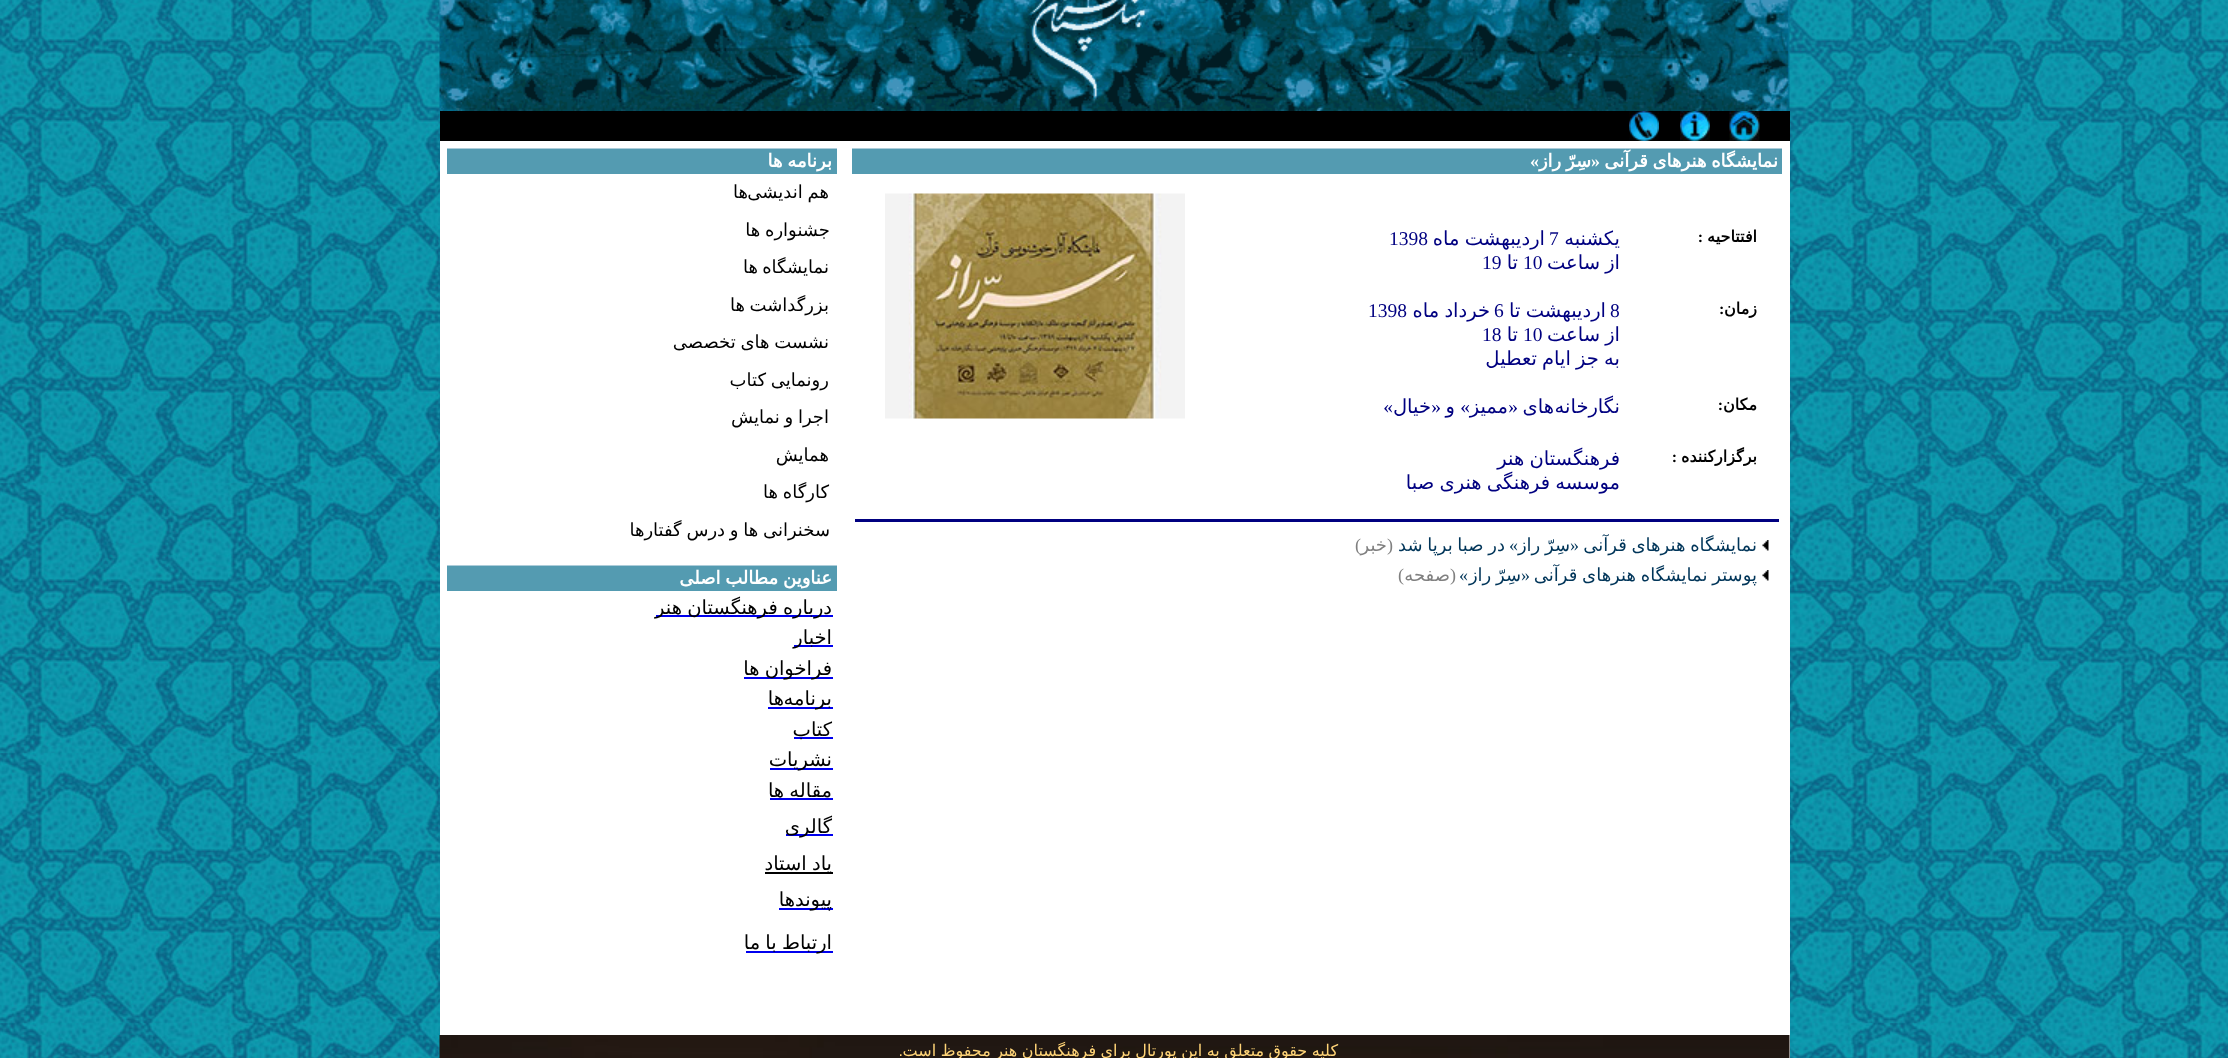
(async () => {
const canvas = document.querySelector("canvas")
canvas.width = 2228
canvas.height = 1058
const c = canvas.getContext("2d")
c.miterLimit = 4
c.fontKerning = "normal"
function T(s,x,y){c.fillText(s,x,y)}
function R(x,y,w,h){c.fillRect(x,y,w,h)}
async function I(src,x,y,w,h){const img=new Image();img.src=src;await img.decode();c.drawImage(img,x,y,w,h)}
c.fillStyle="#fff"
R(0,0,2228,1058)
await I("1.png",0,0,2228,1058)
await I("2.png",439,0,1351,111)
c.fillStyle="#000"
R(440,111,1350,30)
await I("3.png",1729,111,31,30)
await I("4.png",1680,111,30,30)
await I("5.png",1629,111,30,30)
c.fillStyle="#fff"
R(440,141,1350,894)
c.fillStyle="#549bb1"
R(852,149,930,25)
c.fillStyle="#adcdda"
R(852,148,930,1)
c.wordSpacing="-1px"
c.direction="rtl"
c.font="bold 18px DejaVu Sans"
c.fillStyle="#fff"
T("نمایشگاه هنرهای قرآنی",1778,167)
c.wordSpacing="0px"
c.font="bold 18px Liberation Serif"
T("«",1600,167)
c.wordSpacing="-1px"
c.font="bold 18px DejaVu Sans"
T("سِرّ راز",1591,167)
c.wordSpacing="0px"
c.font="bold 18px Liberation Serif"
T("»",1539,167)
c.font="bold 16px DejaVu Sans"
c.fillStyle="#000"
T("افتتاحیه",1757,242)
c.font="bold 16px Liberation Serif"
T(":",1703,242)
c.font="19.5px DejaVu Sans"
c.fillStyle="#000080"
T("یکشنبه",1620,245)
c.direction="ltr"
c.font="19.5px Liberation Serif"
T("7",1549,245)
c.wordSpacing="-1px"
c.direction="rtl"
c.font="19.5px DejaVu Sans"
T("اردیبهشت ماه",1545,245)
c.wordSpacing="0px"
c.direction="ltr"
c.font="19.5px Liberation Serif"
T("1398",1389,245)
c.wordSpacing="-1px"
c.direction="rtl"
c.font="19.5px DejaVu Sans"
T("از ساعت",1620,269)
c.wordSpacing="0px"
c.direction="ltr"
c.font="19.5px Liberation Serif"
T("10",1523,269)
c.direction="rtl"
c.font="19.5px DejaVu Sans"
T("تا",1518,269)
c.direction="ltr"
c.font="19.5px Liberation Serif"
T("19",1482,269)
await I("6.png",885,193,300,226)
c.direction="rtl"
c.font="bold 16px DejaVu Sans"
c.fillStyle="#000"
T("زمان",1757,314)
c.direction="ltr"
c.font="bold 16px Liberation Serif"
T(":",1719,314)
c.font="19.5px Liberation Serif"
c.fillStyle="#000080"
T("8",1610,317)
c.wordSpacing="-1px"
c.direction="rtl"
c.font="19.5px DejaVu Sans"
T("اردیبهشت تا",1606,317)
c.wordSpacing="0px"
c.direction="ltr"
c.font="19.5px Liberation Serif"
T("6",1494,317)
c.wordSpacing="-1px"
c.direction="rtl"
c.font="19.5px DejaVu Sans"
T("خرداد ماه",1490,317)
c.wordSpacing="0px"
c.direction="ltr"
c.font="19.5px Liberation Serif"
T("1398",1368,317)
c.wordSpacing="-1px"
c.direction="rtl"
c.font="19.5px DejaVu Sans"
T("از ساعت",1620,341)
c.wordSpacing="0px"
c.direction="ltr"
c.font="19.5px Liberation Serif"
T("10",1523,341)
c.direction="rtl"
c.font="19.5px DejaVu Sans"
T("تا",1518,341)
c.direction="ltr"
c.font="19.5px Liberation Serif"
T("18",1482,341)
c.wordSpacing="-1px"
c.direction="rtl"
c.font="19.5px DejaVu Sans"
T("به جز ایام تعطیل",1620,365)
c.wordSpacing="0px"
c.font="bold 16px DejaVu Sans"
c.fillStyle="#000"
T("مکان",1757,410)
c.font="bold 16px Liberation Serif"
T(":",1723,410)
c.font="19.5px DejaVu Sans"
c.fillStyle="#000080"
T("نگارخانه",1620,413)
T("های",1554,413)
c.font="19.5px Liberation Serif"
T("«",1518,413)
c.font="19.5px DejaVu Sans"
T("ممیز",1508,413)
c.font="19.5px Liberation Serif"
T("»",1470,413)
c.font="19.5px DejaVu Sans"
T("و",1455,413)
c.font="19.5px Liberation Serif"
T("«",1441,413)
c.font="19.5px DejaVu Sans"
T("خیال",1431,413)
c.font="19.5px Liberation Serif"
T("»",1393,413)
c.font="bold 16px DejaVu Sans"
c.fillStyle="#000"
T("برگزارکننده",1757,462)
c.font="bold 16px Liberation Serif"
T(":",1677,462)
c.wordSpacing="-1px"
c.font="19.5px DejaVu Sans"
c.fillStyle="#000080"
T("فرهنگستان هنر",1620,465)
T("موسسه فرهنگی هنری صبا",1620,489)
R(855,519,924,3)
await I("7.png",1762,540,7,11)
c.font="18px DejaVu Sans"
c.fillStyle="#003559"
T("نمایشگاه هنرهای قرآنی",1757,551)
c.wordSpacing="0px"
c.font="18px Liberation Serif"
T("«",1579,551)
c.wordSpacing="-1px"
c.font="18px DejaVu Sans"
T("سِرّ راز",1570,551)
c.wordSpacing="0px"
c.font="18px Liberation Serif"
T("»",1518,551)
c.wordSpacing="-1px"
c.font="18px DejaVu Sans"
T("در صبا برپا شد",1505,551)
c.wordSpacing="0px"
c.font="18px Liberation Serif"
c.fillStyle="#808080"
T("(",1393,551)
T(")",1361,551)
c.font="18px DejaVu Sans"
T("خبر",1387,551)
await I("7.png",1762,570,7,11)
c.wordSpacing="-1px"
c.fillStyle="#003559"
T("پوستر نمایشگاه هنرهای قرآنی",1757,581)
c.wordSpacing="0px"
c.font="18px Liberation Serif"
T("«",1530,581)
T("»",1468,581)
c.wordSpacing="-1px"
c.font="18px DejaVu Sans"
T("سِرّ راز",1521,581)
c.wordSpacing="0px"
c.font="18px Liberation Serif"
c.fillStyle="#808080"
T("(",1456,581)
c.font="18px DejaVu Sans"
T("صفحه",1450,581)
c.font="18px Liberation Serif"
T(")",1404,581)
c.fillStyle="#549bb1"
R(447,149,390,25)
c.fillStyle="#adcdda"
R(447,148,390,1)
c.wordSpacing="-1px"
c.font="bold 18px DejaVu Sans"
c.fillStyle="#fff"
T("برنامه ها",832,167)
c.font="18px DejaVu Sans"
c.fillStyle="#000"
T("هم اندیشی",829,198)
c.wordSpacing="0px"
T("ها",748,198)
c.wordSpacing="-1px"
T("جشنواره ها",830,236)
c.wordSpacing="0px"
T("نمایشگاه",829,273)
T("ها",758,273)
c.wordSpacing="-1px"
T("بزرگداشت ها",829,311)
T("نشست های تخصصی",829,348)
T("رونمایی کتاب",829,386)
T("اجرا و نمایش",829,423)
c.wordSpacing="0px"
T("همایش",829,461)
c.wordSpacing="-1px"
T("كارگاه ها",829,498)
T("سخنرانی ها و درس گفتارها",830,536)
c.fillStyle="#549bb1"
R(447,566,390,25)
c.fillStyle="#adcdda"
R(447,565,390,1)
c.font="bold 18px DejaVu Sans"
c.fillStyle="#fff"
T("عناوین مطالب اصلی",832,584)
c.fillStyle="#00e"
R(656,615,177,2)
c.font="19.5px DejaVu Sans"
c.fillStyle="#000"
T("درباره فرهنگستان هنر",832,614)
c.fillStyle="#00e"
R(794,645,39,2)
c.wordSpacing="0px"
c.fillStyle="#000"
T("اخبار",832,644)
c.fillStyle="#00e"
R(744,677,89,2)
c.wordSpacing="-1px"
c.fillStyle="#000"
T("فراخوان ها",832,675)
c.fillStyle="#00e"
R(768,707,65,2)
c.wordSpacing="0px"
c.fillStyle="#000"
T("برنامه",832,705)
T("ها",784,705)
c.fillStyle="#00e"
R(794,737,39,2)
c.fillStyle="#000"
T("کتاب",832,736)
c.fillStyle="#00e"
R(770,768,63,2)
c.fillStyle="#000"
T("نشریات",832,766)
c.wordSpacing="-1px"
T("مقاله ها",832,797)
c.fillStyle="#00e"
R(770,798,63,2)
R(786,834,47,2)
c.wordSpacing="0px"
c.fillStyle="#000"
T("گالری",832,833)
R(765,872,68,2)
c.wordSpacing="-1px"
T("یاد استاد",832,870)
c.fillStyle="#00e"
R(779,908,54,2)
c.wordSpacing="0px"
c.fillStyle="#000"
T("پيوندها",832,906)
c.fillStyle="#00e"
R(746,951,87,2)
c.wordSpacing="-1px"
c.fillStyle="#000"
T("ارتباط با ما",832,949)
c.fillStyle="#fff"
R(1789,1035,1,23)
await I("8.png",439,1035,1351,23)
c.wordSpacing="-0.6px"
c.font="16px DejaVu Sans"
c.fillStyle="#ffd477"
T("کلیه حقوق متعلق به این پورتال برای فرهنگستان هنر محفوظ است",1338,1056)
c.wordSpacing="0px"
c.font="16px Liberation Sans"
T(".",903,1056)
})()
